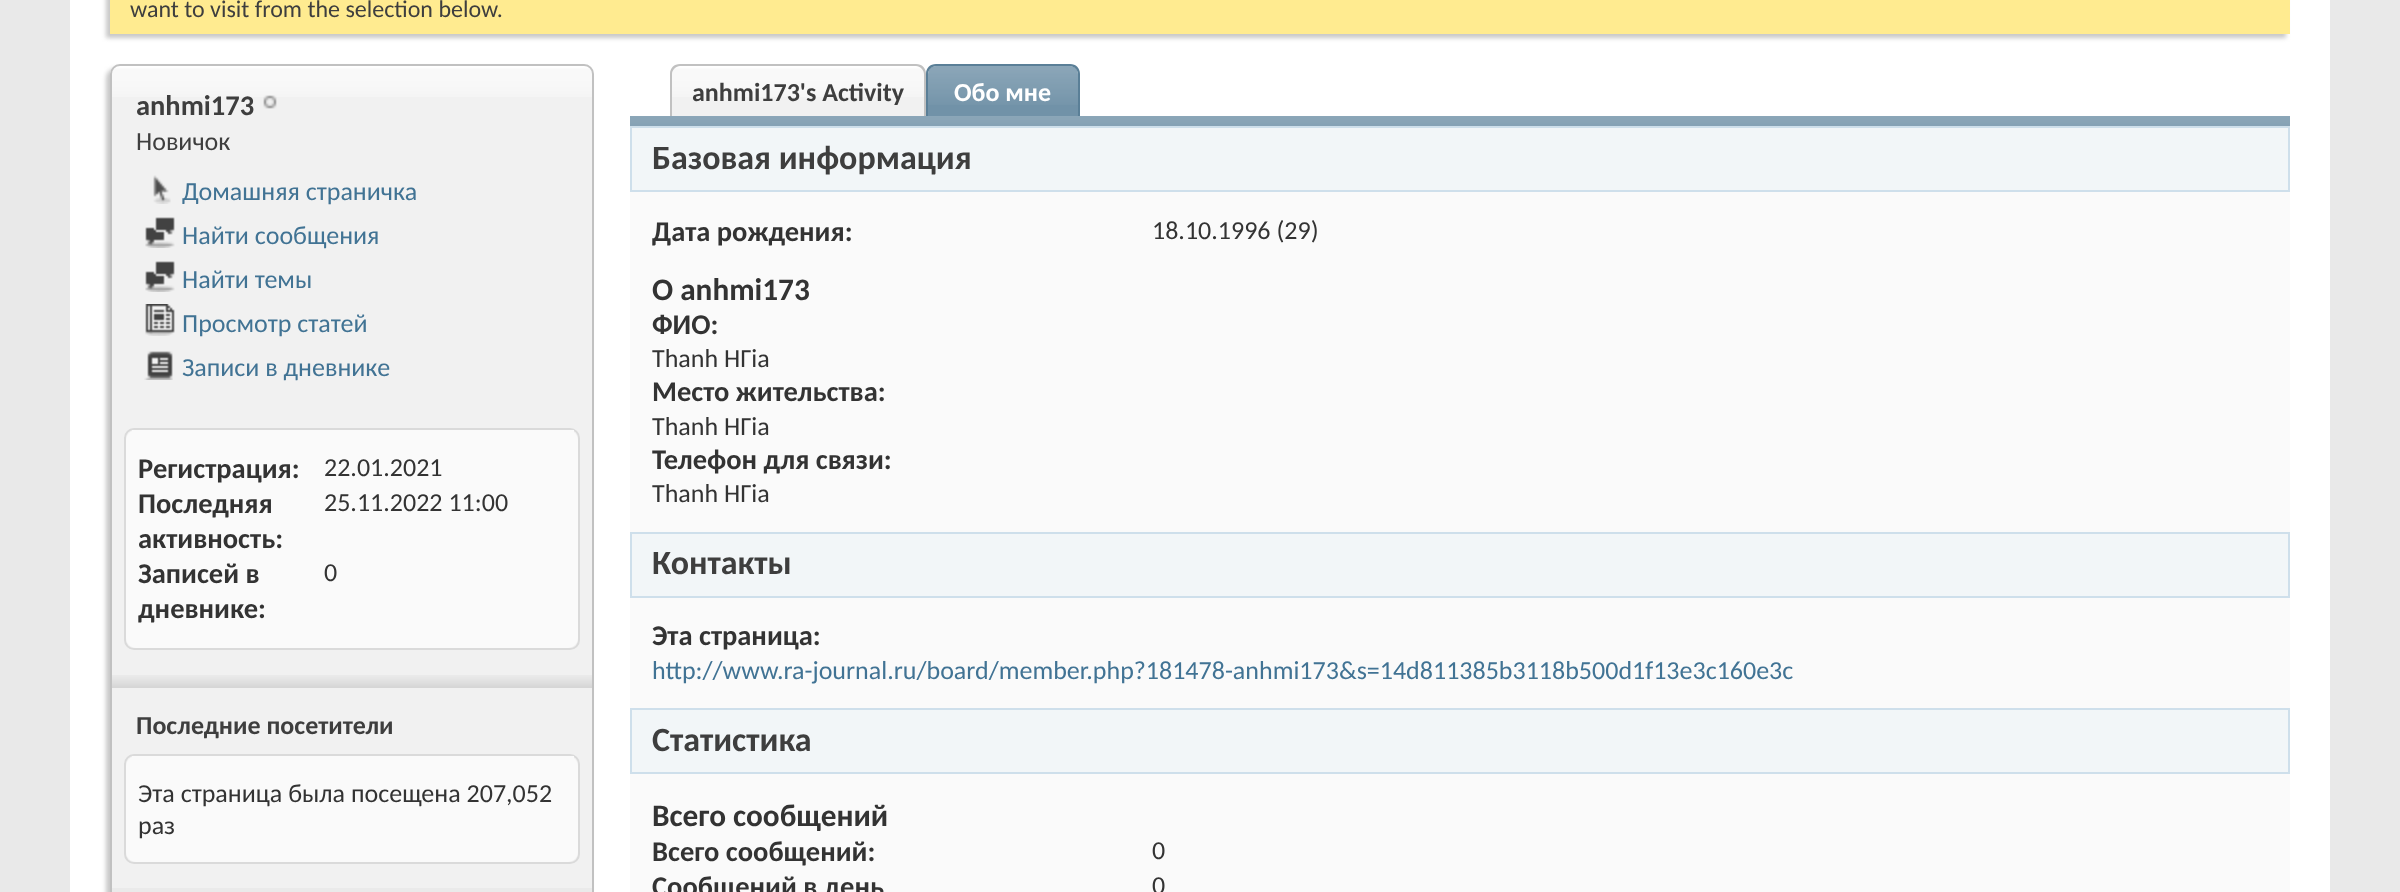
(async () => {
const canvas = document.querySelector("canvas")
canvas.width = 2400
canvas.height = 892
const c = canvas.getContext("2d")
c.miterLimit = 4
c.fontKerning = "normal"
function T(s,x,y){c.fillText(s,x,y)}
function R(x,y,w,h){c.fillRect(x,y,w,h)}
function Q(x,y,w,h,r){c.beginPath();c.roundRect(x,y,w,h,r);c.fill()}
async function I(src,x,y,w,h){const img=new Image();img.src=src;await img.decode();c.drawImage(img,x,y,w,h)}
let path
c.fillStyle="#e9e9e9"
R(0,0,2400,892)
c.fillStyle="#fff"
R(70,0,2260,892)
c.fillStyle="#c8c8c8"
c.filter="blur(2px)"
c.beginPath()
c.rect(106,-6,2180,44)
c.fill()
c.filter="none"
c.fillStyle="#ffeb90"
R(110,0,2180,34)
c.font="24px Carlito"
c.fillStyle="#3e3e3e"
T("want to visit from the selection below.",130,17)
c.fillStyle="#c8c8c8"
c.filter="blur(2px)"
c.beginPath()
c.roundRect(106,68,484,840,10)
c.fill()
c.filter="none"
c.fillStyle="#f1f1f1"
Q(110,64,484,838,10)
await I("1.png",110,66,484,31)
c.beginPath()
c.roundRect(111,65,482,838,9)
c.strokeStyle="#c1c1c1"
c.lineWidth=2
c.stroke()
c.font="bold 28.5px Carlito"
c.fillStyle="#3e3e3e"
T("anhmi173",136,115)
await I("2.png",263,95,14,14)
c.font="26px Carlito"
T("Новичок",136,150)
await I("3.png",153,175,18,29)
c.fillStyle="#417394"
T("Домашняя страничка",182,200)
await I("4.png",145,217,30,31)
T("Найти сообщения",182,244)
await I("4.png",145,261,30,31)
T("Найти темы",182,288)
await I("5.png",145,304,30,32)
T("Просмотр статей",182,332)
await I("6.png",144,351,29,29)
T("Записи в дневнике",182,376)
c.beginPath()
c.roundRect(125,429,454,220,9)
c.strokeStyle="#dadada"
c.stroke()
c.fillStyle="#fafafa"
Q(126,430,452,218,10)
R(132,430,442,2)
c.font="bold 28.5px Carlito"
c.fillStyle="#333"
T("Регистрация:",138,478)
c.font="26px Carlito"
T("22.01.2021",324,476)
c.font="bold 28.5px Carlito"
T("Последняя",138,513)
T("активность:",138,548)
c.font="26px Carlito"
T("25.11.2022 11:00",324,511)
c.font="bold 28.5px Carlito"
T("Записей в",138,583)
T("дневнике:",138,618)
c.font="26px Carlito"
T("0",324,581)
await I("7.png",112,675,480,13)
c.font="bold 26px Carlito"
c.fillStyle="#3e3e3e"
T("Последние посетители",136,734)
c.beginPath()
c.roundRect(125,755,454,108,9)
c.stroke()
c.fillStyle="#fafafa"
Q(126,756,452,106,10)
R(132,756,442,2)
c.font="26px Carlito"
c.fillStyle="#333"
T("Эта страница была посещена 207,052",138,802)
T("раз",138,834)
c.fillStyle="#eaeaea"
R(112,888,480,4)
c.fillStyle="#f1f1f1"
c.beginPath()
c.roundRect(672,66,252,50,[8,8,0,0])
c.fill()
await I("8.png",672,66,252,31)
c.fillStyle="#c1c1c1"
path = new Path2D("M680 64h236c6 0 10 4 10 10v42h-256v-42c0-6 4-10 10-10zm0 2h236c4 0 8 4 8 8v42h-252v-42c0-4 4-8 8-8z")
c.fill(path,"evenodd")
c.font="bold 26px Carlito"
c.fillStyle="#3e3e3e"
T("anhmi173's Activity",692,101)
c.fillStyle="#7192a8"
c.beginPath()
c.roundRect(928,66,150,50,[8,8,0,0])
c.fill()
await I("9.png",928,66,150,39)
c.fillStyle="#5a7f97"
path = new Path2D("M936 64h134c6 0 10 4 10 10v42h-154v-42c0-6 4-10 10-10zm0 2h134c4 0 8 4 8 8v42h-150v-42c0-4 4-8 8-8z")
c.fill(path,"evenodd")
c.fillStyle="#fff"
T("Обо мне",954,101)
c.fillStyle="#7192a8"
R(630,116,1660,10)
await I("10.png",630,116,1660,10)
c.fillStyle="#f2f6f8"
c.beginPath()
c.rect(631,127,1658,64)
c.fill()
c.strokeStyle="#cedfeb"
c.stroke()
c.font="bold 34px Carlito"
c.fillStyle="#3e3e3e"
T("Базовая информация",652,169)
c.fillStyle="#fafafa"
R(630,192,1660,340)
c.font="bold 28.5px Carlito"
c.fillStyle="#333"
T("Дата рождения:",652,241)
c.font="26px Carlito"
T("18.10.1996 (29)",1152,239)
c.font="bold 31.25px Carlito"
T("О anhmi173",652,300)
c.font="bold 28.5px Carlito"
T("ФИО:",652,334)
c.font="26px Carlito"
T("Thanh HГіa",652,367)
c.font="bold 28.5px Carlito"
T("Место жительства:",652,401)
c.font="26px Carlito"
T("Thanh HГіa",652,435)
c.font="bold 28.5px Carlito"
T("Телефон для связи:",652,469)
c.font="26px Carlito"
T("Thanh HГіa",652,502)
c.fillStyle="#f2f6f8"
c.beginPath()
c.rect(631,533,1658,64)
c.fill()
c.stroke()
c.font="bold 34px Carlito"
c.fillStyle="#3e3e3e"
T("Контакты",652,574)
c.fillStyle="#fafafa"
R(630,598,1660,110)
c.font="bold 28.5px Carlito"
c.fillStyle="#333"
T("Эта страница:",652,645)
c.font="26px Carlito"
c.fillStyle="#417394"
T("http://www.ra-journal.ru/board/member.php?181478-anhmi173&s=14d811385b3118b500d1f13e3c160e3c",652,679)
c.fillStyle="#f2f6f8"
c.beginPath()
c.rect(631,709,1658,64)
c.fill()
c.stroke()
c.font="bold 34px Carlito"
c.fillStyle="#3e3e3e"
T("Статистика",652,751)
c.fillStyle="#fafafa"
R(630,774,1660,118)
c.font="bold 31.25px Carlito"
c.fillStyle="#333"
T("Всего сообщений",652,826)
c.font="bold 28.5px Carlito"
T("Всего сообщений:",652,861)
c.font="26px Carlito"
T("0",1152,859)
c.font="bold 28.5px Carlito"
T("Сообщений в день",652,896)
c.font="26px Carlito"
T("0",1152,894)
})()
